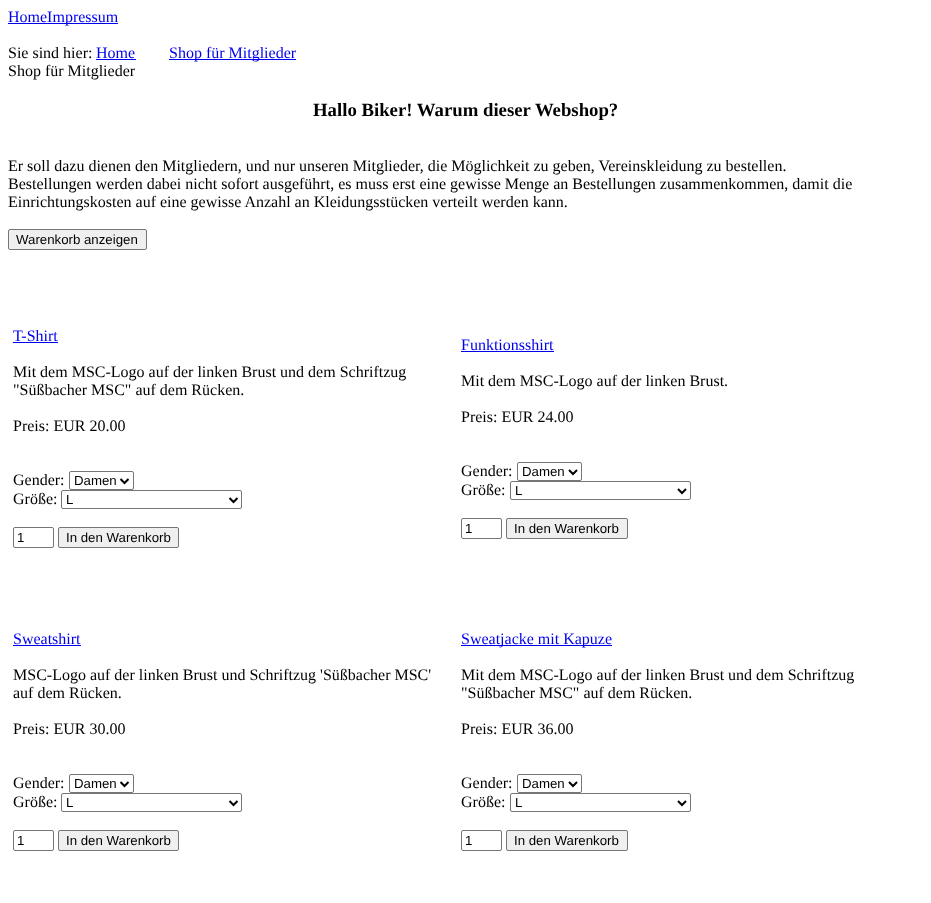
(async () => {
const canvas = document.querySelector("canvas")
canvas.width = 931
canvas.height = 903
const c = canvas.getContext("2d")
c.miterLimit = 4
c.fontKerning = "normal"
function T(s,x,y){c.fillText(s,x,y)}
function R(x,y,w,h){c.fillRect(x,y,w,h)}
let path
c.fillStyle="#fff"
R(0,0,931,903)
c.fillStyle="#00e"
R(8,23,110,1)
c.font="16px Liberation Serif"
T("HomeImpressum",8,22)
c.fillStyle="#000"
T("Sie sind hier:",8,58)
c.fillStyle="#00e"
T("Home",96,58)
R(96,59,40,1)
R(169,59,127,1)
T("Shop für Mitglieder",169,58)
c.fillStyle="#000"
T("Shop für Mitglieder",8,76)
c.font="bold 18.75px Liberation Serif"
T("Hallo Biker! Warum dieser Webshop?",313,116)
c.font="16px Liberation Serif"
T("Er soll dazu dienen den Mitgliedern, und nur unseren Mitglieder, die Möglichkeit zu geben, Vereinskleidung zu bestellen.",8,171)
T("Bestellungen werden dabei nicht sofort ausgeführt, es muss erst eine gewisse Menge an Bestellungen zusammenkommen, damit die",8,189)
T("Einrichtungskosten auf eine gewisse Anzahl an Kleidungsstücken verteilt werden kann.",8,207)
c.fillStyle="#efefef"
c.beginPath()
c.roundRect(8.5,229.5,138,20,1.5)
c.fill()
c.strokeStyle="#767676"
c.stroke()
c.font="13.25px Liberation Sans"
c.fillStyle="#000"
T("Warenkorb anzeigen",16,244)
c.font="16px Liberation Serif"
c.fillStyle="#00e"
T("T-Shirt",13,341)
R(13,342,45,1)
c.fillStyle="#000"
T("Mit dem MSC-Logo auf der linken Brust und dem Schriftzug",13,377)
T("\"Süßbacher MSC\" auf dem Rücken.",13,395)
T("Preis: EUR 20.00",13,431)
T("Gender:",13,485)
c.beginPath()
c.roundRect(69.5,471.5,64,18,1.5)
c.stroke()
path = new Path2D("M120.5 479l4 4l4-4")
c.strokeStyle="#000"
c.lineWidth=2
c.stroke(path)
c.font="13.25px Liberation Sans"
T("Damen",74,485)
c.font="16px Liberation Serif"
T("Größe:",13,504)
c.beginPath()
c.roundRect(61.5,490.5,180,18,1.5)
c.strokeStyle="#767676"
c.lineWidth=1
c.stroke()
path = new Path2D("M229.5 498l4 4l4-4")
c.strokeStyle="#000"
c.lineWidth=2
c.stroke(path)
c.font="13.25px Liberation Sans"
T("L",66,504)
c.beginPath()
c.roundRect(13.5,527.5,40,20,1.5)
c.strokeStyle="#767676"
c.lineWidth=1
c.stroke()
T("1",17,542)
c.fillStyle="#efefef"
c.beginPath()
c.roundRect(58.5,527.5,120,20,1.5)
c.fill()
c.stroke()
c.fillStyle="#000"
T("In den Warenkorb",66,542)
c.font="16px Liberation Serif"
c.fillStyle="#00e"
T("Funktionsshirt",461,350)
R(461,351,93,1)
c.fillStyle="#000"
T("Mit dem MSC-Logo auf der linken Brust.",461,386)
T("Preis: EUR 24.00",461,422)
T("Gender:",461,476)
c.beginPath()
c.roundRect(517.5,462.5,64,18,1.5)
c.stroke()
path = new Path2D("M569 470l4 4l4-4")
c.strokeStyle="#000"
c.lineWidth=2
c.stroke(path)
c.font="13.25px Liberation Sans"
T("Damen",522,476)
c.font="16px Liberation Serif"
T("Größe:",461,495)
c.beginPath()
c.roundRect(510.5,481.5,180,18,1.5)
c.strokeStyle="#767676"
c.lineWidth=1
c.stroke()
path = new Path2D("M678 489l4 4l4-4")
c.strokeStyle="#000"
c.lineWidth=2
c.stroke(path)
c.font="13.25px Liberation Sans"
T("L",515,495)
c.beginPath()
c.roundRect(461.5,518.5,40,20,1.5)
c.strokeStyle="#767676"
c.lineWidth=1
c.stroke()
T("1",465,533)
c.fillStyle="#efefef"
c.beginPath()
c.roundRect(506.5,518.5,121,20,1.5)
c.fill()
c.stroke()
c.fillStyle="#000"
T("In den Warenkorb",514,533)
c.font="16px Liberation Serif"
c.fillStyle="#00e"
T("Sweatshirt",13,644)
R(13,645,68,1)
c.fillStyle="#000"
T("MSC-Logo auf der linken Brust und Schriftzug 'Süßbacher MSC'",13,680)
T("auf dem Rücken.",13,698)
T("Preis: EUR 30.00",13,734)
T("Gender:",13,788)
c.beginPath()
c.roundRect(69.5,774.5,64,18,1.5)
c.stroke()
path = new Path2D("M120.5 782l4 4l4-4")
c.strokeStyle="#000"
c.lineWidth=2
c.stroke(path)
c.font="13.25px Liberation Sans"
T("Damen",74,788)
c.font="16px Liberation Serif"
T("Größe:",13,807)
c.beginPath()
c.roundRect(61.5,793.5,180,18,1.5)
c.strokeStyle="#767676"
c.lineWidth=1
c.stroke()
path = new Path2D("M229.5 801l4 4l4-4")
c.strokeStyle="#000"
c.lineWidth=2
c.stroke(path)
c.font="13.25px Liberation Sans"
T("L",66,807)
c.beginPath()
c.roundRect(13.5,830.5,40,20,1.5)
c.strokeStyle="#767676"
c.lineWidth=1
c.stroke()
T("1",17,845)
c.fillStyle="#efefef"
c.beginPath()
c.roundRect(58.5,830.5,120,20,1.5)
c.fill()
c.stroke()
c.fillStyle="#000"
T("In den Warenkorb",66,845)
c.fillStyle="#00e"
R(461,645,151,1)
c.font="16px Liberation Serif"
T("Sweatjacke mit Kapuze",461,644)
c.fillStyle="#000"
T("Mit dem MSC-Logo auf der linken Brust und dem Schriftzug",461,680)
T("\"Süßbacher MSC\" auf dem Rücken.",461,698)
T("Preis: EUR 36.00",461,734)
T("Gender:",461,788)
c.beginPath()
c.roundRect(517.5,774.5,64,18,1.5)
c.stroke()
path = new Path2D("M569 782l4 4l4-4")
c.strokeStyle="#000"
c.lineWidth=2
c.stroke(path)
c.font="13.25px Liberation Sans"
T("Damen",522,788)
c.font="16px Liberation Serif"
T("Größe:",461,807)
c.beginPath()
c.roundRect(510.5,793.5,180,18,1.5)
c.strokeStyle="#767676"
c.lineWidth=1
c.stroke()
path = new Path2D("M678 801l4 4l4-4")
c.strokeStyle="#000"
c.lineWidth=2
c.stroke(path)
c.font="13.25px Liberation Sans"
T("L",515,807)
c.beginPath()
c.roundRect(461.5,830.5,40,20,1.5)
c.strokeStyle="#767676"
c.lineWidth=1
c.stroke()
T("1",465,845)
c.fillStyle="#efefef"
c.beginPath()
c.roundRect(506.5,830.5,121,20,1.5)
c.fill()
c.stroke()
c.fillStyle="#000"
T("In den Warenkorb",514,845)
})()
